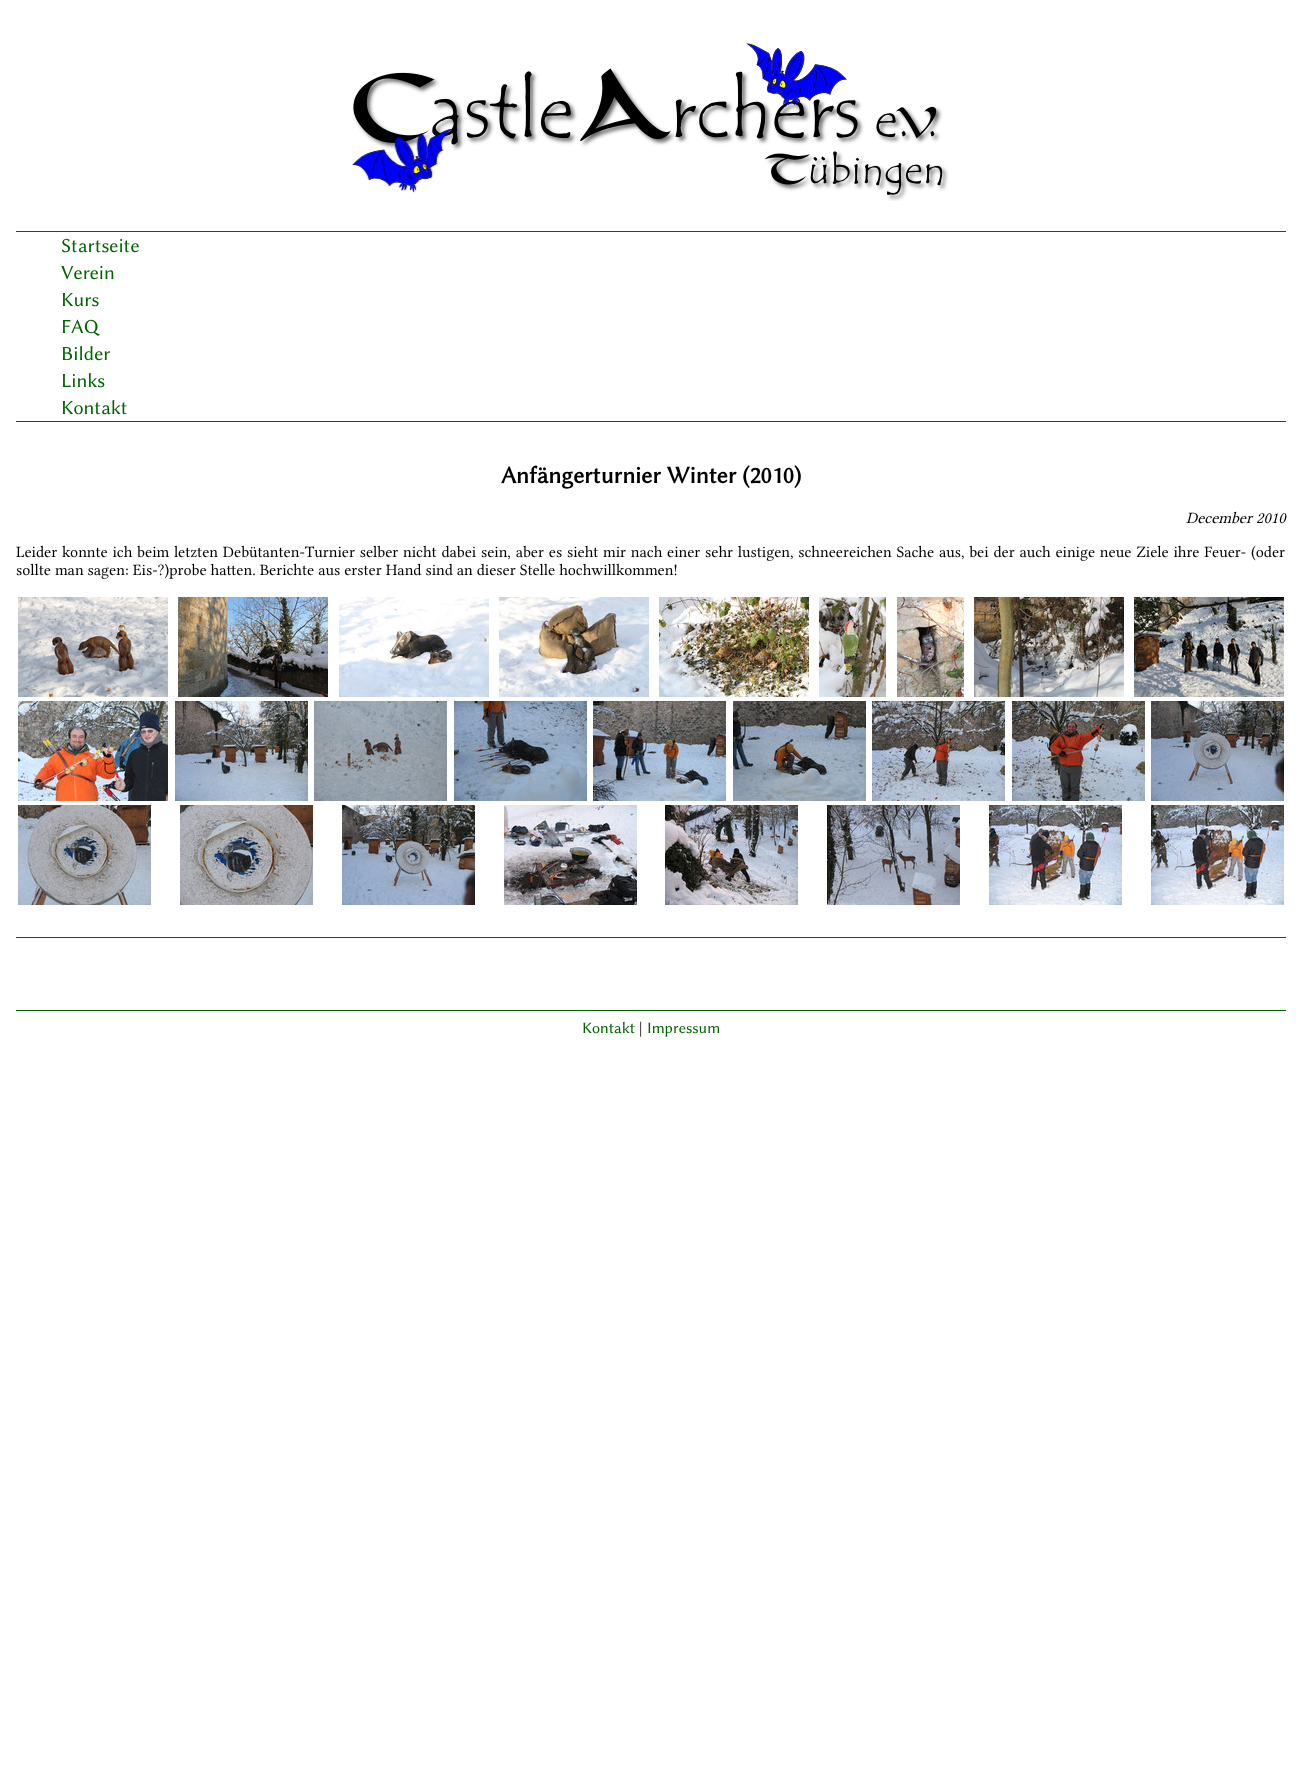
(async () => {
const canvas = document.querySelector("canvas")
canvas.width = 1302
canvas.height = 1770
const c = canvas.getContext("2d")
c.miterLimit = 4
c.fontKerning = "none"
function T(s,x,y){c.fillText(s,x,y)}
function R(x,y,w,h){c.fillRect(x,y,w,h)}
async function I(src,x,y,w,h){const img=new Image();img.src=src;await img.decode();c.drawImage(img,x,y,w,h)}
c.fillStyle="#fff"
R(0,0,1302,1770)
await I("1.png",352,43,597,158)
c.fillStyle="#006400"
R(16,231,1270,1)
R(16,421,1270,1)
c.font="20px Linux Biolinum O"
T("Startseite",61,252)
T("Verein",61,279)
T("Kurs",61,306)
T("FAQ",61,333)
T("Bilder",61,360)
T("Links",61,387)
T("Kontakt",61,414)
c.font="bold 24px Linux Biolinum O"
c.fillStyle="#000"
T("Anfängerturnier Winter (2010)",501,483)
c.font="italic 16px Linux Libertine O"
T("December 2010",1186,523)
c.wordSpacing="0.8px"
c.font="16px Linux Libertine O"
T("Leider konnte ich beim letzten Debütanten-Turnier selber nicht dabei sein, aber es sieht mir nach einer sehr lustigen, schneereichen Sache aus, bei der auch einige neue Ziele ihre Feuer- (oder",16,557)
c.wordSpacing="0px"
T("sollte man sagen: Eis-?)probe hatten. Berichte aus erster Hand sind an dieser Stelle hochwillkommen!",16,575)
await I("2.png",18,597,150,100)
await I("3.png",178,597,150,100)
await I("4.png",339,597,150,100)
await I("5.png",499,597,150,100)
await I("6.png",659,597,150,100)
await I("7.png",819,597,67,100)
await I("8.png",897,597,67,100)
await I("9.png",974,597,150,100)
await I("10.png",1134,597,150,100)
await I("11.png",18,701,150,100)
await I("12.png",175,701,133,100)
await I("13.png",314,701,133,100)
await I("14.png",454,701,133,100)
await I("15.png",593,701,133,100)
await I("16.png",733,701,133,100)
await I("17.png",872,701,133,100)
await I("18.png",1012,701,133,100)
await I("19.png",1151,701,133,100)
await I("20.png",18,805,133,100)
await I("21.png",180,805,133,100)
await I("22.png",342,805,133,100)
await I("23.png",504,805,133,100)
await I("24.png",665,805,133,100)
await I("25.png",827,805,133,100)
await I("26.png",989,805,133,100)
await I("27.png",1151,805,133,100)
c.fillStyle="#006400"
R(16,937,1270,1)
R(16,1010,1270,1)
c.font="16px Linux Biolinum O"
T("Kontakt",582,1033)
c.fillStyle="#000"
T("|",639,1033)
c.fillStyle="#006400"
T("Impressum",647,1033)
})()
